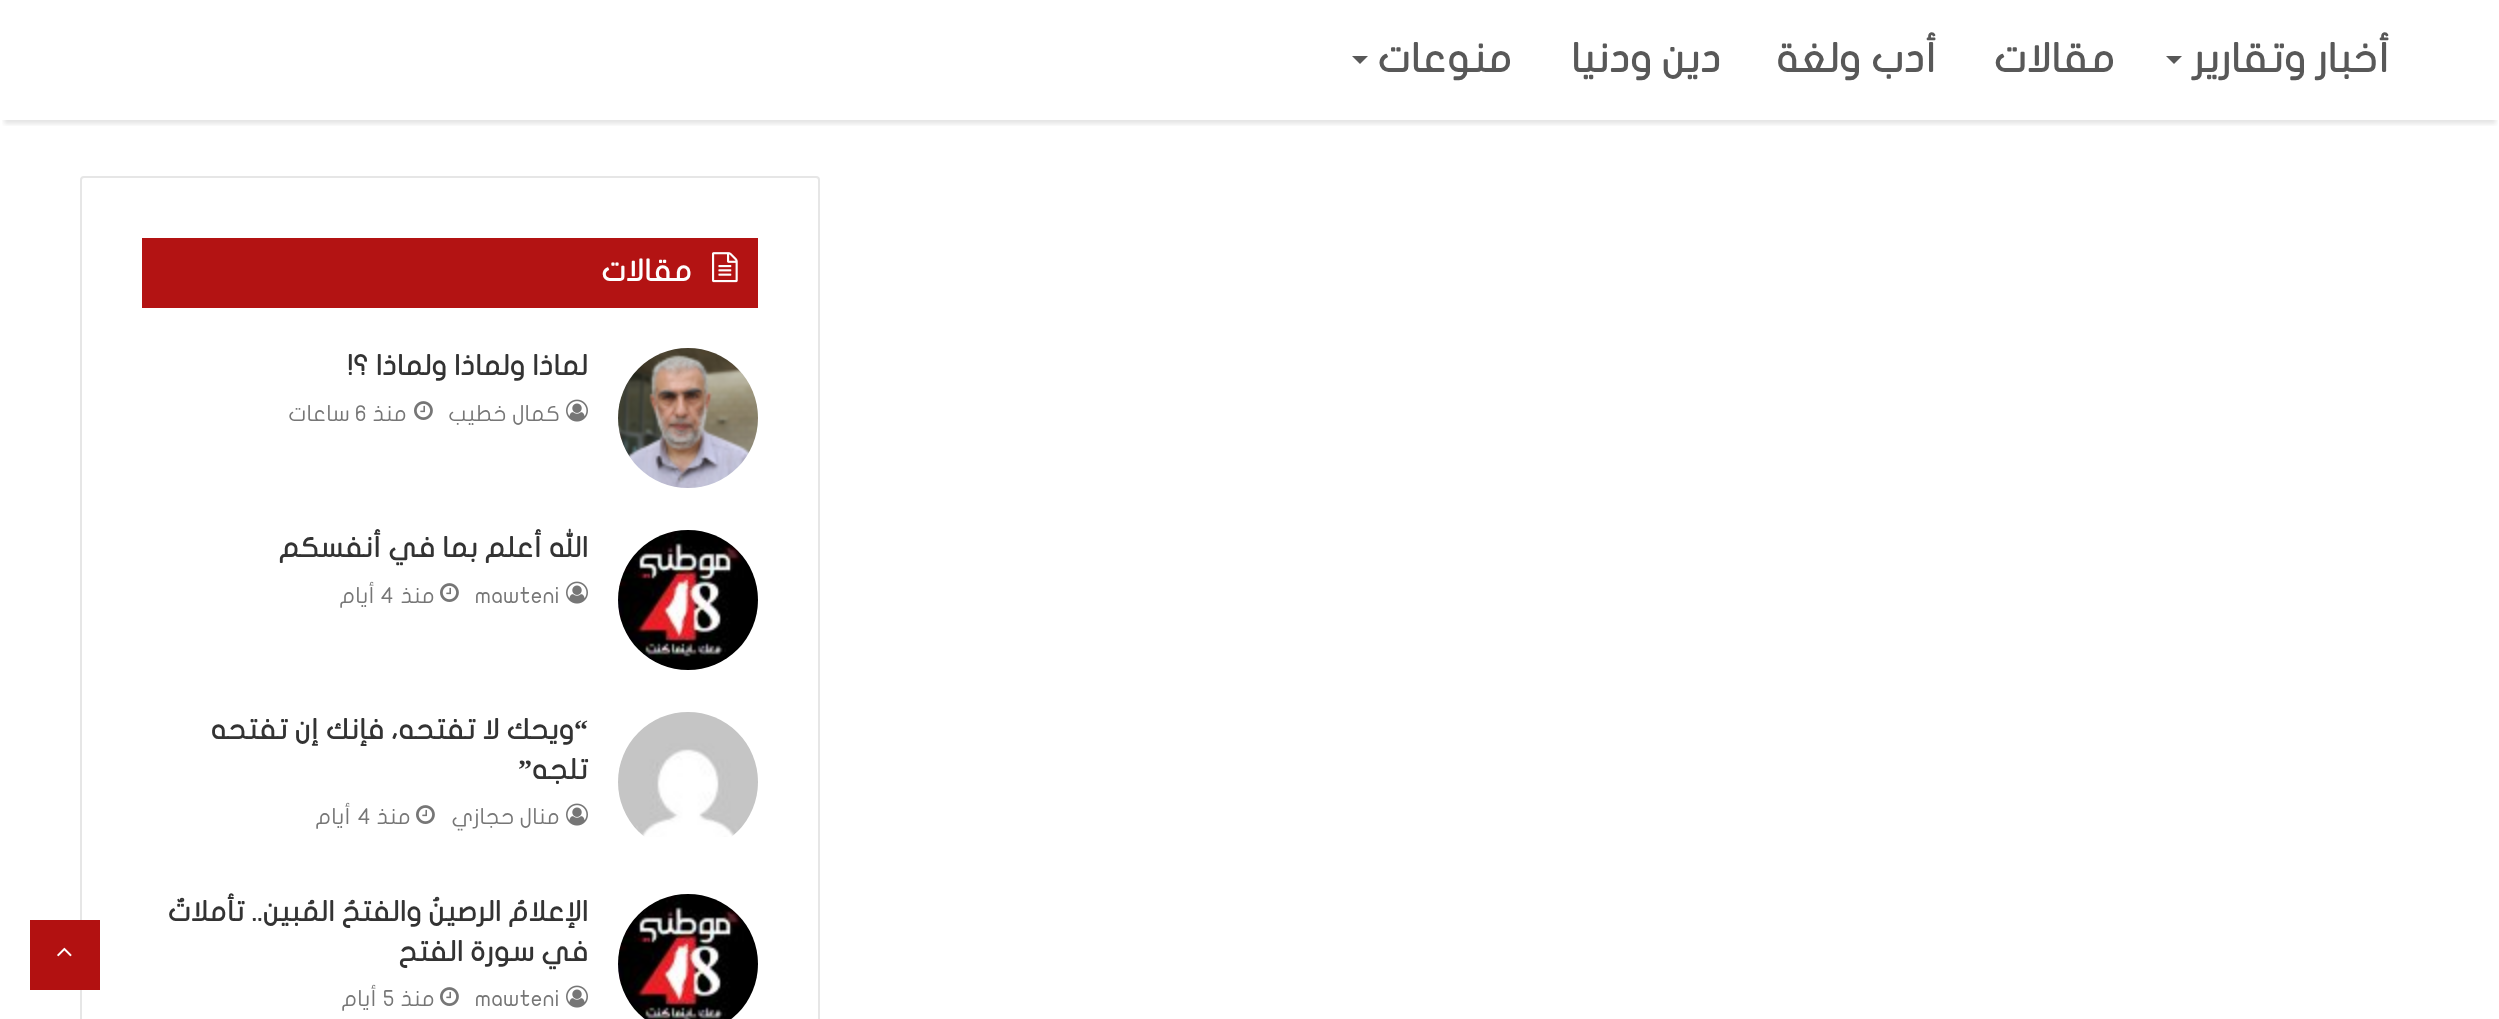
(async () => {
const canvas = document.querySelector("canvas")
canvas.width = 2499
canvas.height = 1019
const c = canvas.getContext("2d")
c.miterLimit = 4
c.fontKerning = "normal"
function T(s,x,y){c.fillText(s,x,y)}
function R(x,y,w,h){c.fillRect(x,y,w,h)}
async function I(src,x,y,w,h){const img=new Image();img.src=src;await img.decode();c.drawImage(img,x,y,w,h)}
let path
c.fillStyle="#fff"
R(0,0,2499,1019)
c.save()
c.beginPath()
c.rect(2,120,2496,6)
c.clip()
c.fillStyle="#0000001a"
c.filter="blur(2px)"
c.beginPath()
c.rect(4,12,2492,112)
c.fill()
c.filter="none"
c.restore()
c.direction="rtl"
c.font="bold 40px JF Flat"
c.fillStyle="#585858"
T("أخبار وتقارير",2390,72)
path = new Path2D("M2166 56h16l-8 8z")
c.fill(path)
T("مقالات",2115,72)
T("أدب ولغة",1937,72)
T("دين ودنيا",1721,72)
T("منوعات",1512,72)
path = new Path2D("M1352 56h16l-8 8z")
c.fill(path)
c.beginPath()
c.roundRect(81,177,738,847,3)
c.strokeStyle="#e6e6e6"
c.lineWidth=2
c.stroke()
c.fillStyle="#b31313"
R(142,238,616,70)
await I("1.png",712,252,26,31)
c.font="bold 30px JF Flat"
c.fillStyle="#fff"
T("مقالات",692,281)
await I("2.png",618,348,140,140)
c.font="bold 28px JF Flat"
c.fillStyle="#333"
T("لماذا ولماذا ولماذا ؟!",588,375)
await I("3.png",566,399,22,23)
c.font="22px JF Flat"
c.fillStyle="#767676"
T("كمال خطيب",560,421)
await I("4.png",414,401,19,19)
T("منذ",407,421)
c.direction="ltr"
T("6",355,421)
c.direction="rtl"
T("ساعات",350,421)
await I("5.png",618,530,140,140)
c.font="bold 28px JF Flat"
c.fillStyle="#333"
T("الله أعلم بما في أنفسكم",588,557)
await I("3.png",566,581,22,23)
c.direction="ltr"
c.font="22px JF Flat"
c.fillStyle="#767676"
T("mawteni",475,603)
await I("4.png",440,583,19,19)
c.direction="rtl"
T("منذ",435,603)
c.direction="ltr"
T("4",380,603)
c.direction="rtl"
T("أيام",375,603)
await I("6.png",618,712,140,125)
c.font="bold 28px Liberation Serif"
c.fillStyle="#333"
T("“",588,739)
c.font="bold 28px JF Flat"
T("ويحك لا تفتحه، فإنك إن تفتحه",574,739)
T("تلجه",588,779)
c.font="bold 28px Liberation Serif"
T("”",532,779)
await I("3.png",566,803,22,23)
c.font="22px JF Flat"
c.fillStyle="#767676"
T("منال حجازي",560,824)
await I("4.png",416,805,19,19)
T("منذ",411,824)
c.direction="ltr"
T("4",357,824)
c.direction="rtl"
T("أيام",351,824)
await I("7.png",618,894,140,125)
c.font="bold 28px JF Flat"
c.fillStyle="#333"
T("الإعلامُ الرصينُ والفتحُ المُبين.. تأملاتٌ",588,921)
T("في سورة الفتح",588,961)
await I("3.png",566,985,22,23)
c.direction="ltr"
c.font="22px JF Flat"
c.fillStyle="#767676"
T("mawteni",475,1006)
await I("4.png",440,987,19,19)
c.direction="rtl"
T("منذ",435,1006)
c.direction="ltr"
T("5",383,1006)
c.direction="rtl"
T("أيام",377,1006)
c.fillStyle="#b21111"
R(30,920,70,70)
await I("8.png",57,947,15,10)
})()
